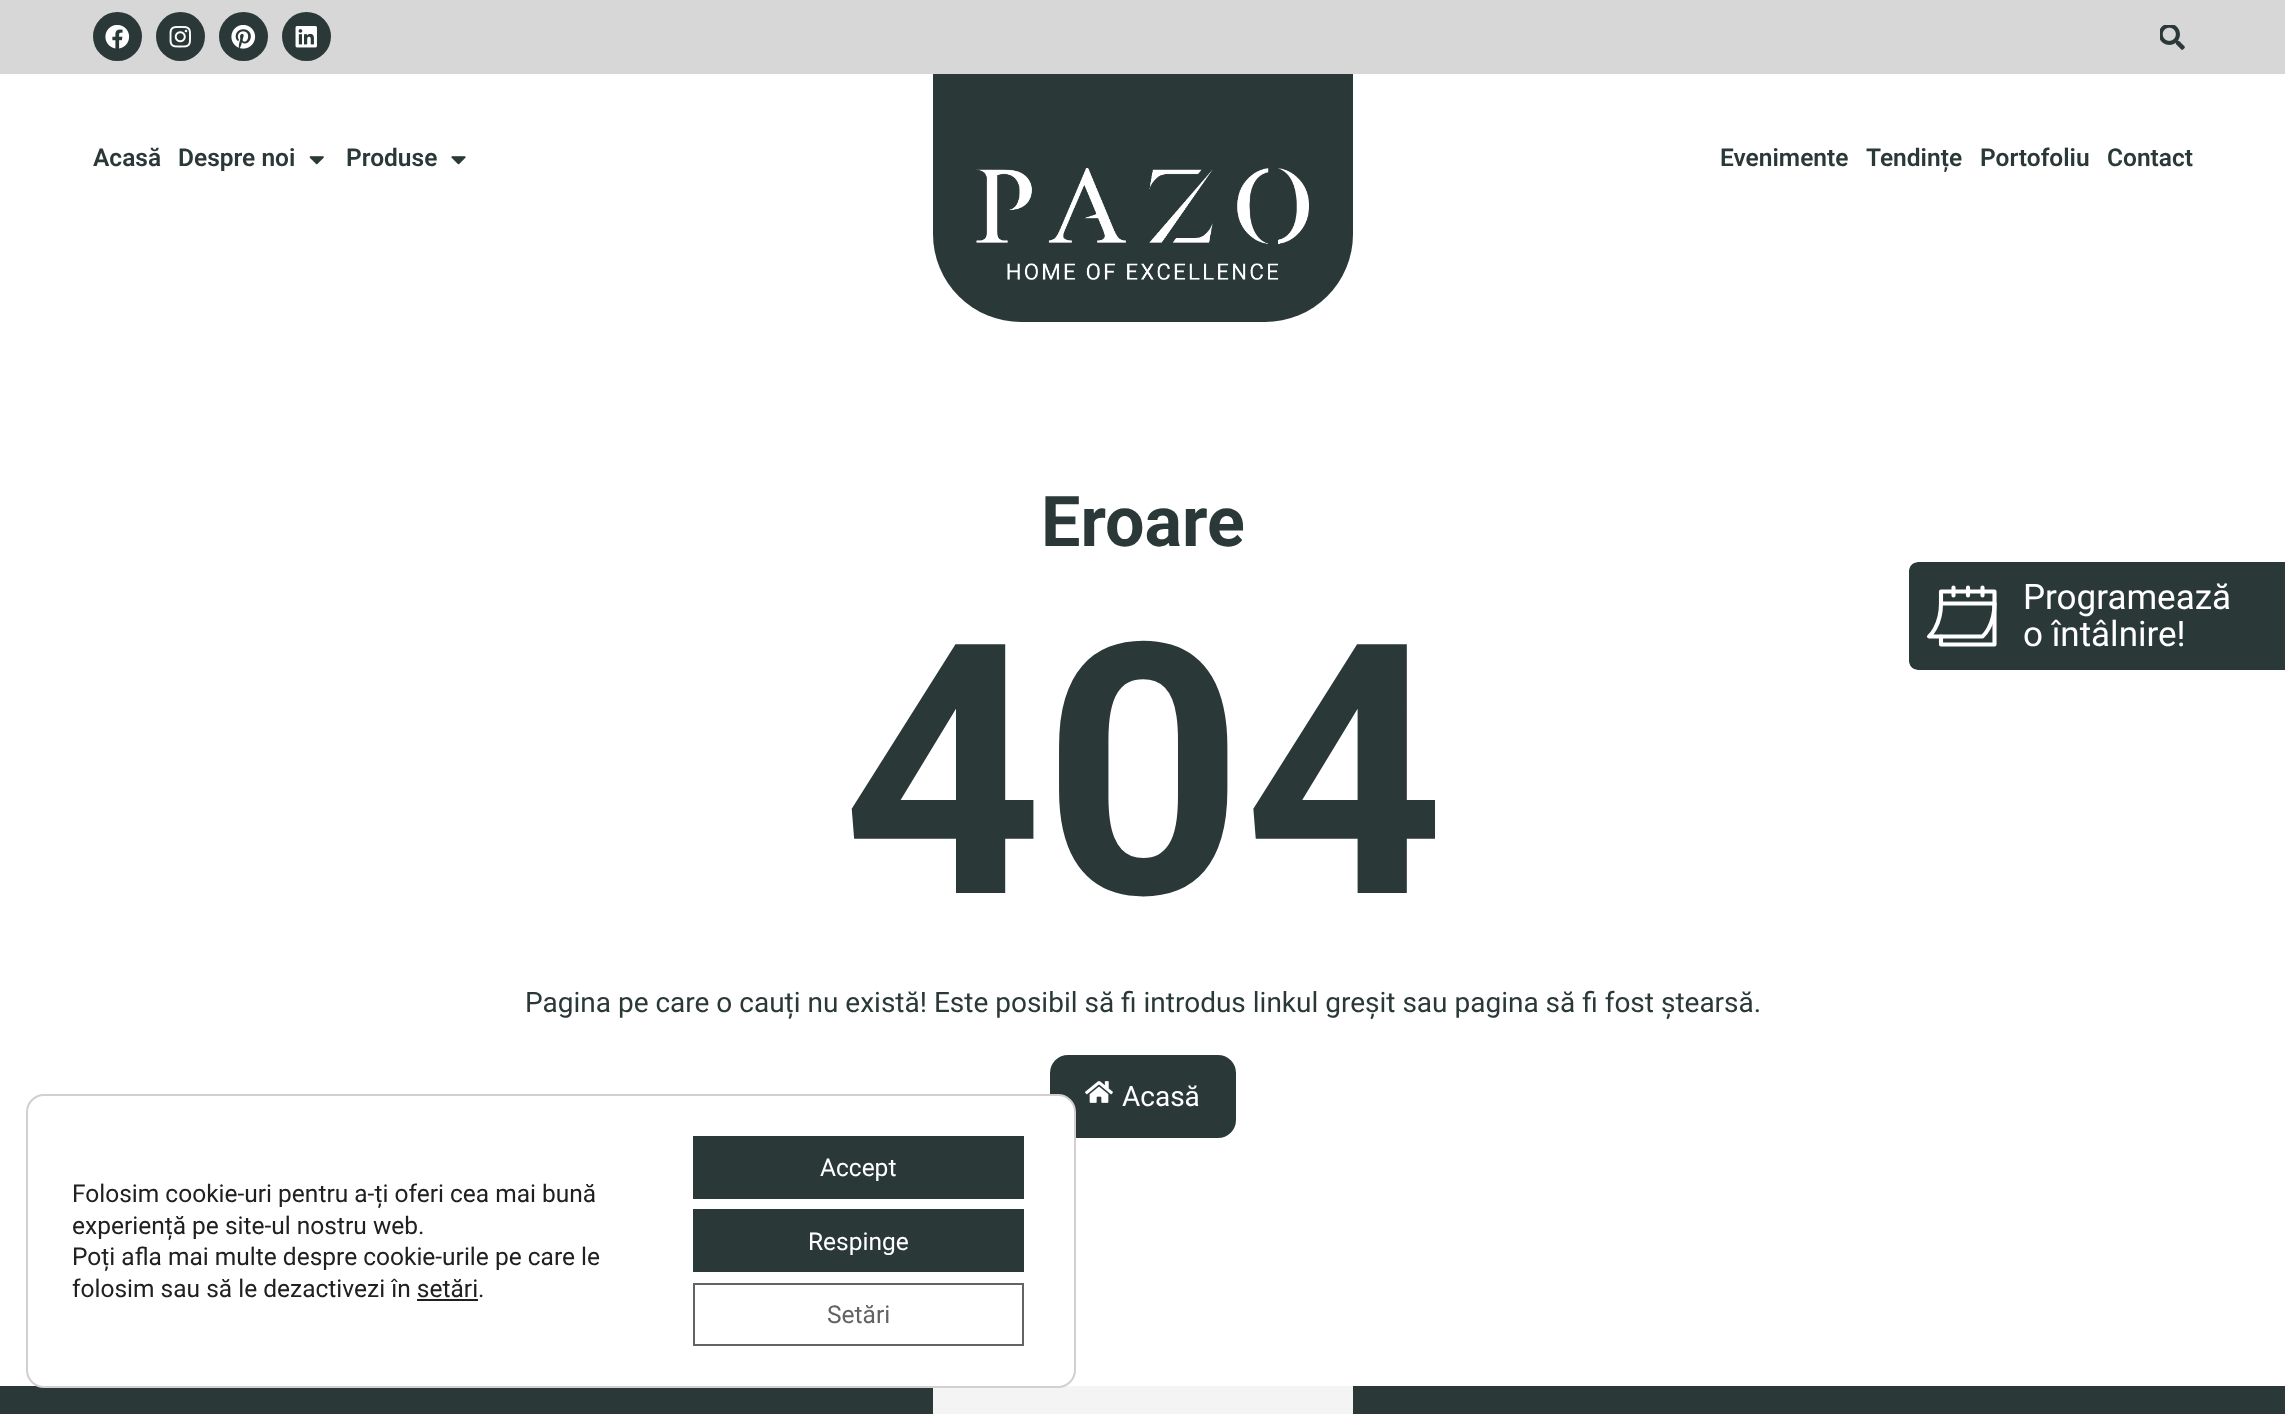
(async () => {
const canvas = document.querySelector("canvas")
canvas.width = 2285
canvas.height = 1414
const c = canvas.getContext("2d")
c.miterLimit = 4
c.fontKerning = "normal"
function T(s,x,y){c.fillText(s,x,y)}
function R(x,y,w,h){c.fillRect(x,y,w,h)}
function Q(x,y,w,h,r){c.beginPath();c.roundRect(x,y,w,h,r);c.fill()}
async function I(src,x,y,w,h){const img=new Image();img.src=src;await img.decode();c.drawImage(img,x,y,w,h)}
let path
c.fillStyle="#fff"
R(0,0,2285,1414)
c.fillStyle="#d7d7d7"
R(0,0,2285,74)
c.fillStyle="#2a3838"
c.beginPath()
c.arc(117.5,36.5,24.5,0,7)
c.fill()
await I("1.png",105,25,25,24)
c.beginPath()
c.arc(180.5,36.5,24.5,0,7)
c.fill()
await I("2.png",169,26,22,22)
c.beginPath()
c.arc(243.5,36.5,24.5,0,7)
c.fill()
await I("3.png",231,25,25,24)
c.beginPath()
c.arc(306.5,36.5,24.5,0,7)
c.fill()
await I("4.png",295,26,22,22)
await I("5.png",2160,25,25,25)
c.font="600 24.5px Roboto"
T("Acasă",93,166)
T("Despre noi",178,166)
await I("6.png",309,156,15,9)
T("Produse",346,166)
await I("7.png",451,156,15,9)
c.beginPath()
c.roundRect(933,74,420,248,[0,0,88,88])
c.fill()
await I("8.png",976,168,333,112)
T("Evenimente",1720,166)
T("Tendințe",1866,166)
T("Portofoliu",1980,166)
T("Contact",2107,166)
path = new Path2D("M1918 562h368v108h-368c-5 0-9-4-9-9v-90c0-5 4-9 9-9z")
c.fill(path)
c.fillStyle="#fff"
path = new Path2D("M1918 553h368v126h-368c-10 0-18-8-18-17v-92c0-9 8-17 18-17zm0 9h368v108h-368c-5 0-9-4-9-8v-92c0-4 4-8 9-8z")
c.fill(path,"evenodd")
path = new Path2D("M1941 636.5v8h53.5v-53h-53.5v12h53.5m-41-16v8m29-8v8m-14.5-8v8")
c.strokeStyle="#fff"
c.lineWidth=4.1
c.lineCap="round"
c.lineJoin="round"
c.stroke(path)
path = new Path2D("M1941 603.5c0 23-12 33-12 33h53.5c0 0 12-10 12-33")
c.stroke(path)
c.font="35px Roboto"
T("Programează",2023,609)
T("o întâlnire!",2023,646)
c.font="bold 70px Roboto"
c.fillStyle="#2a3838"
T("Eroare",1041,546)
c.font="bold 350px Roboto"
T("404",842,893)
c.font="28px Roboto"
T("Pagina pe care o cauți nu există! Este posibil să fi introdus linkul greșit sau pagina să fi fost ștearsă.",525,1012)
Q(1050,1055,186,83,18)
await I("9.png",1085,1081,28,22)
c.fillStyle="#fff"
T("Acasă",1122,1106)
c.fillStyle="#2a3838"
R(0,1386,2285,28)
c.fillStyle="#f4f4f4"
R(933,1386,420,28)
c.fillStyle="#fff"
c.beginPath()
c.roundRect(27,1095,1048,292,17)
c.fill()
c.strokeStyle="#d3ced2"
c.lineWidth=2
c.lineJoin="miter"
c.stroke()
c.font="24.5px Roboto"
c.fillStyle="#202020"
T("Folosim cookie-uri pentru a-ți oferi cea mai bună",72,1202)
T("experiență pe site-ul nostru web.",72,1234)
T("Poți afla mai multe despre cookie-urile pe care le",72,1265)
T("folosim sau să le dezactivezi în setări.",72,1297)
R(417,1299,61,2)
c.fillStyle="#2a3838"
R(693,1136,331,63)
c.fillStyle="#fff"
T("Accept",820,1176)
c.fillStyle="#2a3838"
R(693,1209,331,63)
c.fillStyle="#fff"
T("Respinge",808,1250)
c.strokeStyle="#636363"
c.strokeRect(694,1284,329,61)
c.fillStyle="#636363"
T("Setări",827,1323)
})()
